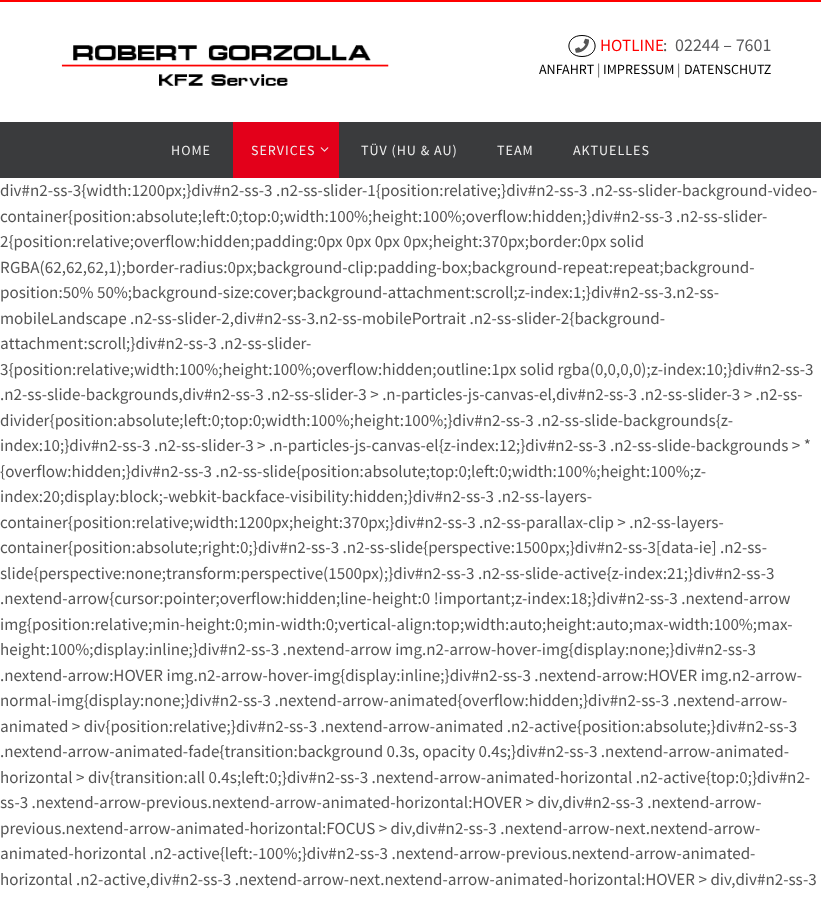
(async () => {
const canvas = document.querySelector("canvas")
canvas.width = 821
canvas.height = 905
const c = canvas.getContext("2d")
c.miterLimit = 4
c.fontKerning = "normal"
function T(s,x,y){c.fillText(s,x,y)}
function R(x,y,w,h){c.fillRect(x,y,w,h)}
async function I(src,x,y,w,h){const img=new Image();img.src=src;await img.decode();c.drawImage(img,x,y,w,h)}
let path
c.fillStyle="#fff"
R(0,0,821,905)
c.fillStyle="#f00"
R(0,0,821,2)
await I("1.png",61,45,328,41)
path = new Path2D("M582 35.5c17.5 0 17.5 21 0 21c-17.5 0-17.5-21 0-21z")
c.strokeStyle="#000"
c.stroke(path)
await I("2.png",575,38,14,15)
c.font="17px Source Sans Pro"
T("HOTLINE",600,51)
c.fillStyle="#555"
T(":",663,51)
c.font="18px Source Sans Pro"
c.fillStyle="#59595b"
T("02244 – 7601",675,51)
c.font="14px Source Sans Pro"
c.fillStyle="#000"
T("ANFAHRT",539,74)
c.fillStyle="#555"
T("|",597,74)
c.fillStyle="#000"
T("IMPRESSUM",603,74)
c.fillStyle="#555"
T("|",677,74)
c.fillStyle="#000"
T("DATENSCHUTZ",684,74)
c.fillStyle="#3a3b3d"
R(0,122,821,56)
c.letterSpacing="1px"
c.fillStyle="#eee"
T("HOME",171,155)
c.fillStyle="#e3001a"
R(233,122,106,56)
c.fillStyle="#eee"
T("SERVICES",251,155)
await I("3.png",320,147,9,5)
T("TÜV (HU & AU)",361,155)
T("TEAM",497,155)
T("AKTUELLES",573,155)
c.letterSpacing="0px"
c.font="17px Source Sans Pro"
c.fillStyle="#555"
T("div#n2-ss-3{width:1200px;}div#n2-ss-3 .n2-ss-slider-1{position:relative;}div#n2-ss-3 .n2-ss-slider-background-video-",0,196)
T("container{position:absolute;left:0;top:0;width:100%;height:100%;overflow:hidden;}div#n2-ss-3 .n2-ss-slider-",0,222)
T("2{position:relative;overflow:hidden;padding:0px 0px 0px 0px;height:370px;border:0px solid",0,247)
T("RGBA(62,62,62,1);border-radius:0px;background-clip:padding-box;background-repeat:repeat;background-",0,273)
T("position:50% 50%;background-size:cover;background-attachment:scroll;z-index:1;}div#n2-ss-3.n2-ss-",0,298)
T("mobileLandscape .n2-ss-slider-2,div#n2-ss-3.n2-ss-mobilePortrait .n2-ss-slider-2{background-",0,324)
T("attachment:scroll;}div#n2-ss-3 .n2-ss-slider-",0,349)
T("3{position:relative;width:100%;height:100%;overflow:hidden;outline:1px solid rgba(0,0,0,0);z-index:10;}div#n2-ss-3",0,375)
T(".n2-ss-slide-backgrounds,div#n2-ss-3 .n2-ss-slider-3 > .n-particles-js-canvas-el,div#n2-ss-3 .n2-ss-slider-3 > .n2-ss-",0,400)
T("divider{position:absolute;left:0;top:0;width:100%;height:100%;}div#n2-ss-3 .n2-ss-slide-backgrounds{z-",0,426)
T("index:10;}div#n2-ss-3 .n2-ss-slider-3 > .n-particles-js-canvas-el{z-index:12;}div#n2-ss-3 .n2-ss-slide-backgrounds > *",0,451)
T("{overflow:hidden;}div#n2-ss-3 .n2-ss-slide{position:absolute;top:0;left:0;width:100%;height:100%;z-",0,477)
T("index:20;display:block;-webkit-backface-visibility:hidden;}div#n2-ss-3 .n2-ss-layers-",0,502)
T("container{position:relative;width:1200px;height:370px;}div#n2-ss-3 .n2-ss-parallax-clip > .n2-ss-layers-",0,528)
T("container{position:absolute;right:0;}div#n2-ss-3 .n2-ss-slide{perspective:1500px;}div#n2-ss-3[data-ie] .n2-ss-",0,553)
T("slide{perspective:none;transform:perspective(1500px);}div#n2-ss-3 .n2-ss-slide-active{z-index:21;}div#n2-ss-3",0,579)
T(".nextend-arrow{cursor:pointer;overflow:hidden;line-height:0 !important;z-index:18;}div#n2-ss-3 .nextend-arrow",0,604)
T("img{position:relative;min-height:0;min-width:0;vertical-align:top;width:auto;height:auto;max-width:100%;max-",0,630)
T("height:100%;display:inline;}div#n2-ss-3 .nextend-arrow img.n2-arrow-hover-img{display:none;}div#n2-ss-3",0,655)
T(".nextend-arrow:HOVER img.n2-arrow-hover-img{display:inline;}div#n2-ss-3 .nextend-arrow:HOVER img.n2-arrow-",0,681)
T("normal-img{display:none;}div#n2-ss-3 .nextend-arrow-animated{overflow:hidden;}div#n2-ss-3 .nextend-arrow-",0,706)
T("animated > div{position:relative;}div#n2-ss-3 .nextend-arrow-animated .n2-active{position:absolute;}div#n2-ss-3",0,732)
T(".nextend-arrow-animated-fade{transition:background 0.3s, opacity 0.4s;}div#n2-ss-3 .nextend-arrow-animated-",0,757)
T("horizontal > div{transition:all 0.4s;left:0;}div#n2-ss-3 .nextend-arrow-animated-horizontal .n2-active{top:0;}div#n2-",0,783)
T("ss-3 .nextend-arrow-previous.nextend-arrow-animated-horizontal:HOVER > div,div#n2-ss-3 .nextend-arrow-",0,808)
T("previous.nextend-arrow-animated-horizontal:FOCUS > div,div#n2-ss-3 .nextend-arrow-next.nextend-arrow-",0,834)
T("animated-horizontal .n2-active{left:-100%;}div#n2-ss-3 .nextend-arrow-previous.nextend-arrow-animated-",0,859)
T("horizontal .n2-active,div#n2-ss-3 .nextend-arrow-next.nextend-arrow-animated-horizontal:HOVER > div,div#n2-ss-3",0,885)
})()
